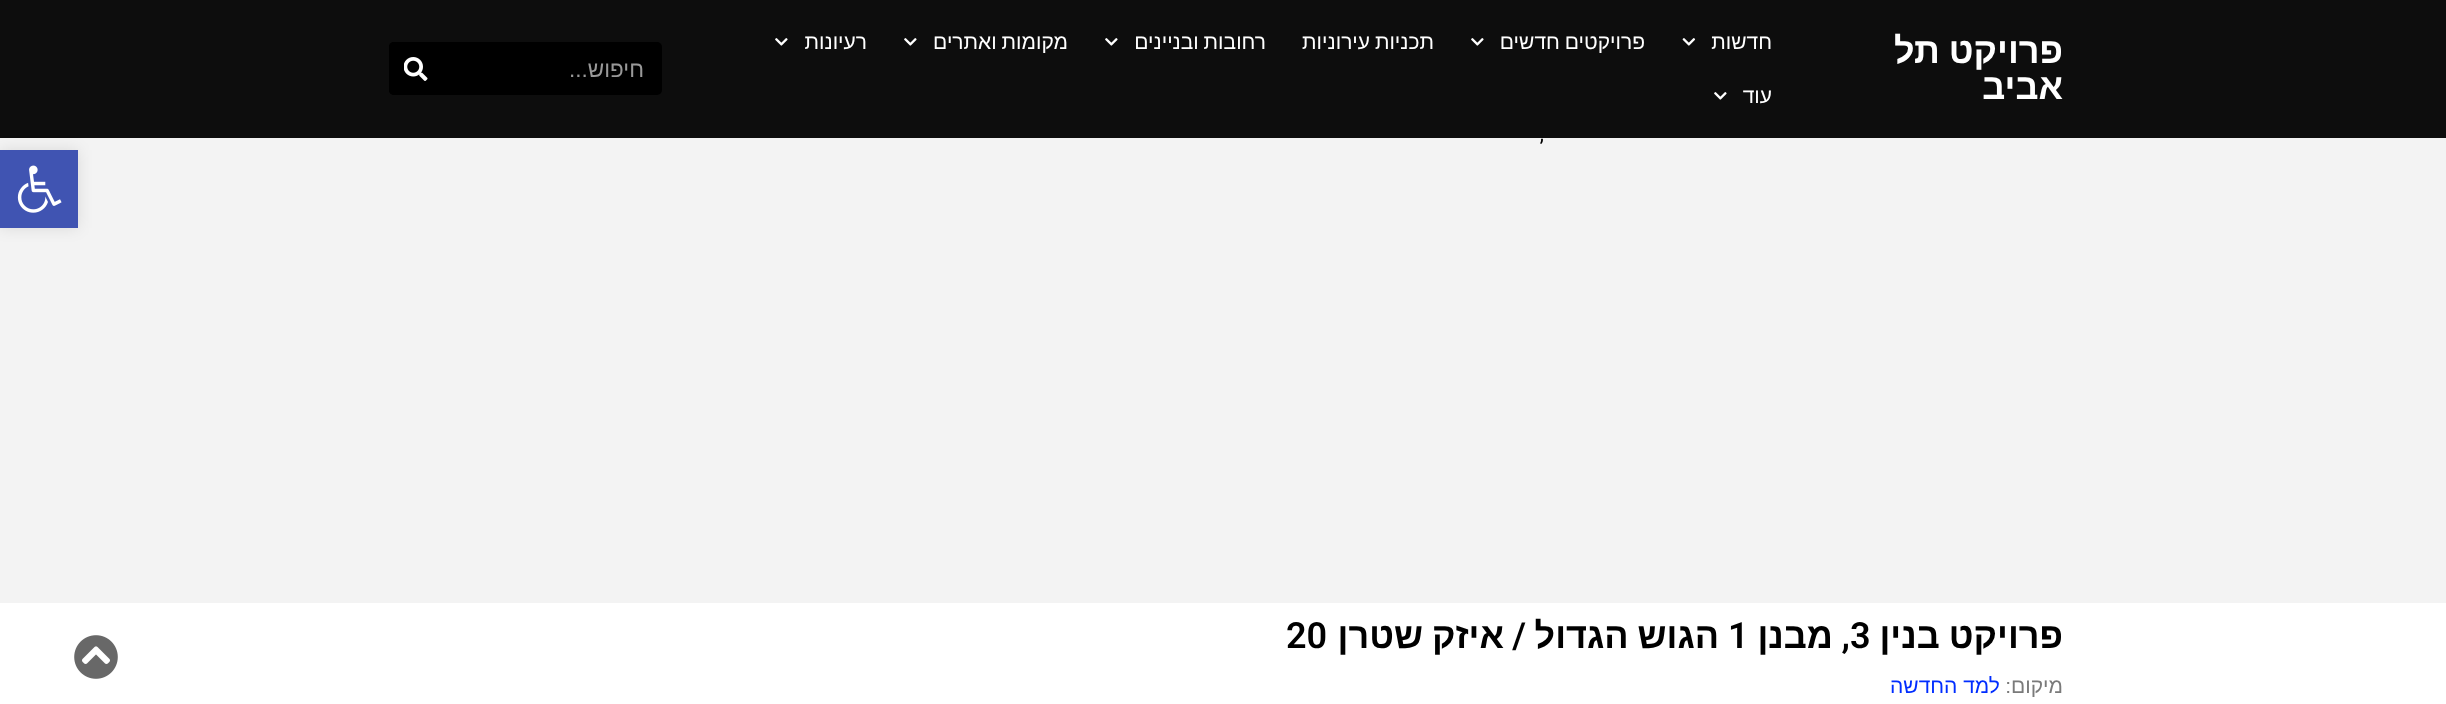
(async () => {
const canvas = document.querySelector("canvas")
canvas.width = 2446
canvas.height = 704
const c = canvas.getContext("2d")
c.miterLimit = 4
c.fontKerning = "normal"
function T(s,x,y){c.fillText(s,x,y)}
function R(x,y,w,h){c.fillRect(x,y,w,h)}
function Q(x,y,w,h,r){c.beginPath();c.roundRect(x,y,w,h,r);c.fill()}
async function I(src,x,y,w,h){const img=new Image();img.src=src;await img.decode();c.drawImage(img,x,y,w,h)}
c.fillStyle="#fff"
R(0,0,2446,704)
c.fillStyle="#f3f3f3"
R(0,102,2446,501)
c.fillStyle="#000000f2"
R(0,0,2446,138)
c.wordSpacing="-1px"
c.direction="rtl"
c.font="bold 36px Liberation Sans"
c.fillStyle="#fff"
T("פרויקט תל",2063,63)
c.wordSpacing="0px"
T("אביב",2063,99)
c.font="21px Liberation Sans"
T("חדשות",1772,49)
await I("1.png",1682,38,14,8)
c.wordSpacing="-1px"
T("פרויקטים חדשים",1645,49)
await I("2.png",1471,38,13,8)
T("תכניות עירוניות",1434,49)
T("רחובות ובניינים",1266,49)
await I("2.png",1105,38,13,8)
T("מקומות ואתרים",1068,49)
await I("2.png",904,38,13,8)
c.wordSpacing="0px"
T("רעיונות",867,49)
await I("2.png",775,38,13,8)
T("עוד",1772,103)
await I("2.png",1714,92,13,8)
c.fillStyle="#000"
Q(389,42,273,53,5)
c.font="22.5px Liberation Sans"
c.fillStyle="#999"
T("חיפוש...",644,77)
c.fillStyle="#000"
c.beginPath()
c.roundRect(389,42,52,53,[5,0,0,5])
c.fill()
await I("3.png",404,57,24,24)
c.font="21px Roboto"
T(",",1544,141)
c.fillStyle="#0000001a"
c.filter="blur(7.5px)"
c.beginPath()
c.rect(0,150,78,78)
c.fill()
c.filter="none"
c.fillStyle="#4054b2"
R(0,150,78,78)
await I("4.png",17,165,45,48)
c.wordSpacing="-1px"
c.font="bold 36px Liberation Sans"
c.fillStyle="#000"
T("פרויקט בנין",2063,648)
c.wordSpacing="0px"
c.direction="ltr"
c.font="600 36px Roboto"
T("3",1850,648)
c.direction="rtl"
T(",",1850,648)
c.font="bold 36px Liberation Sans"
T("מבנן",1833,648)
c.direction="ltr"
c.font="600 36px Roboto"
T("1",1728,648)
c.wordSpacing="-1px"
c.direction="rtl"
c.font="bold 36px Liberation Sans"
T("הגוש הגדול",1719,648)
c.wordSpacing="0px"
c.font="600 36px Roboto"
T("/",1526,648)
c.wordSpacing="-1px"
c.font="bold 36px Liberation Sans"
T("איזק שטרן",1504,648)
c.wordSpacing="0px"
c.direction="ltr"
c.font="600 36px Roboto"
T("20",1286,648)
c.direction="rtl"
c.font="21px Liberation Sans"
c.fillStyle="#7a7a7a"
T("מיקום:",2063,693)
c.fillStyle="#002dff"
T("למד החדשה",2000,693)
await I("5.png",74,635,44,44)
})()
